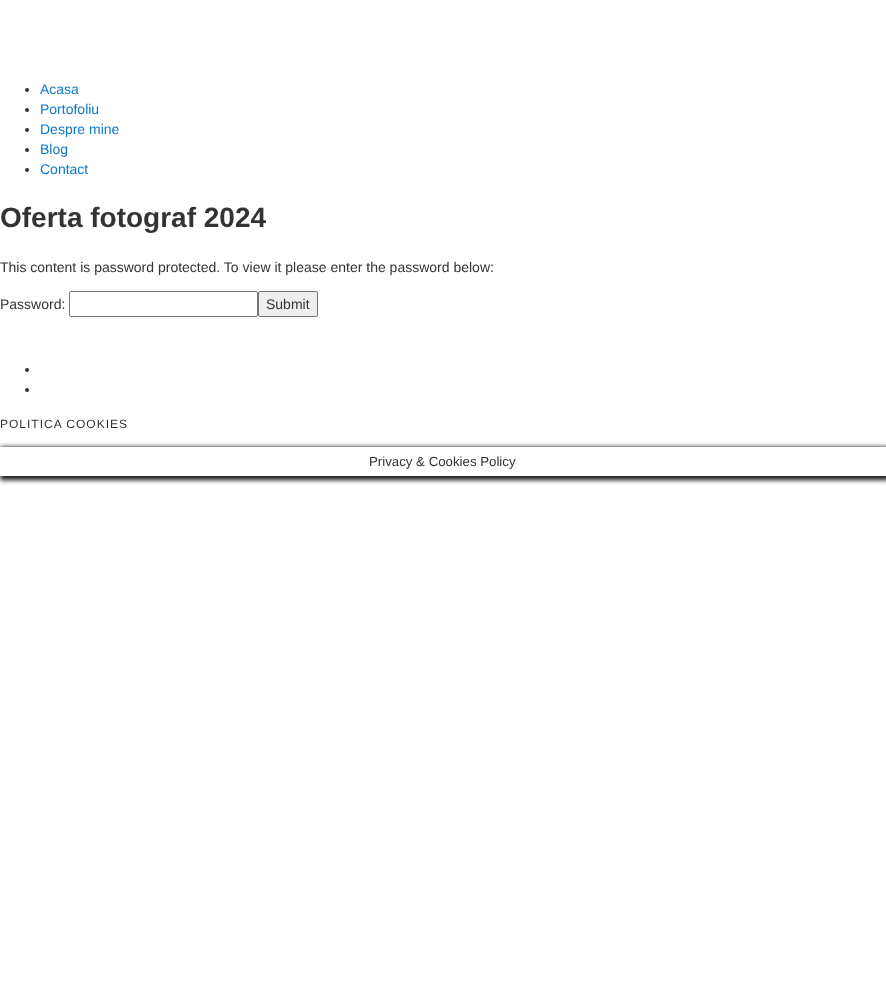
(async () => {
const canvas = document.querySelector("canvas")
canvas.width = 886
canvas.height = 1005
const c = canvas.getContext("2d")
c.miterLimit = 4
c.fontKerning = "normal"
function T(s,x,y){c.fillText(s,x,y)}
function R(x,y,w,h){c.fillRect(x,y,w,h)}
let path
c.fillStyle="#fff"
R(0,0,886,1005)
c.fillStyle="#333"
c.beginPath()
c.arc(27,90,2,0,7)
c.fill()
c.font="14px Liberation Sans"
c.fillStyle="#0e79cc"
T("Acasa",40,94)
c.fillStyle="#333"
c.beginPath()
c.arc(27,110,2,0,7)
c.fill()
c.fillStyle="#0e79cc"
T("Portofoliu",40,114)
c.fillStyle="#333"
c.beginPath()
c.arc(27,130,2,0,7)
c.fill()
c.fillStyle="#0e79cc"
T("Despre mine",40,134)
c.fillStyle="#333"
c.beginPath()
c.arc(27,150,2,0,7)
c.fill()
c.fillStyle="#0e79cc"
T("Blog",40,154)
c.fillStyle="#333"
c.beginPath()
c.arc(27,170,2,0,7)
c.fill()
c.fillStyle="#0e79cc"
T("Contact",40,174)
c.font="bold 28px Liberation Sans"
c.fillStyle="#333"
T("Oferta fotograf 2024",0,227)
c.font="14px Liberation Sans"
T("This content is password protected. To view it please enter the password below:",0,272)
T("Password:",0,309)
c.beginPath()
c.roundRect(69.5,291.5,188,25,1.5)
c.strokeStyle="#767676"
c.stroke()
c.fillStyle="#efefef"
c.beginPath()
c.roundRect(258.5,291.5,59,25,1.5)
c.fill()
c.stroke()
c.fillStyle="#333"
T("Submit",266,309)
c.beginPath()
c.arc(27,370,2,0,7)
c.fill()
c.beginPath()
c.arc(27,390,2,0,7)
c.fill()
c.letterSpacing="1px"
c.font="12px Liberation Sans"
T("POLITICA COOKIES",0,428)
c.save()
path = new Path2D("M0 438h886v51h-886zm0 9h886v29h-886z")
c.clip(path,"evenodd")
c.fillStyle="#161616"
c.filter="blur(2.5px)"
c.beginPath()
c.rect(0,447,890,33)
c.fill()
c.filter="none"
c.restore()
c.letterSpacing="0px"
c.font="13.25px Liberation Sans"
T("Privacy & Cookies Policy",369,466)
})()
